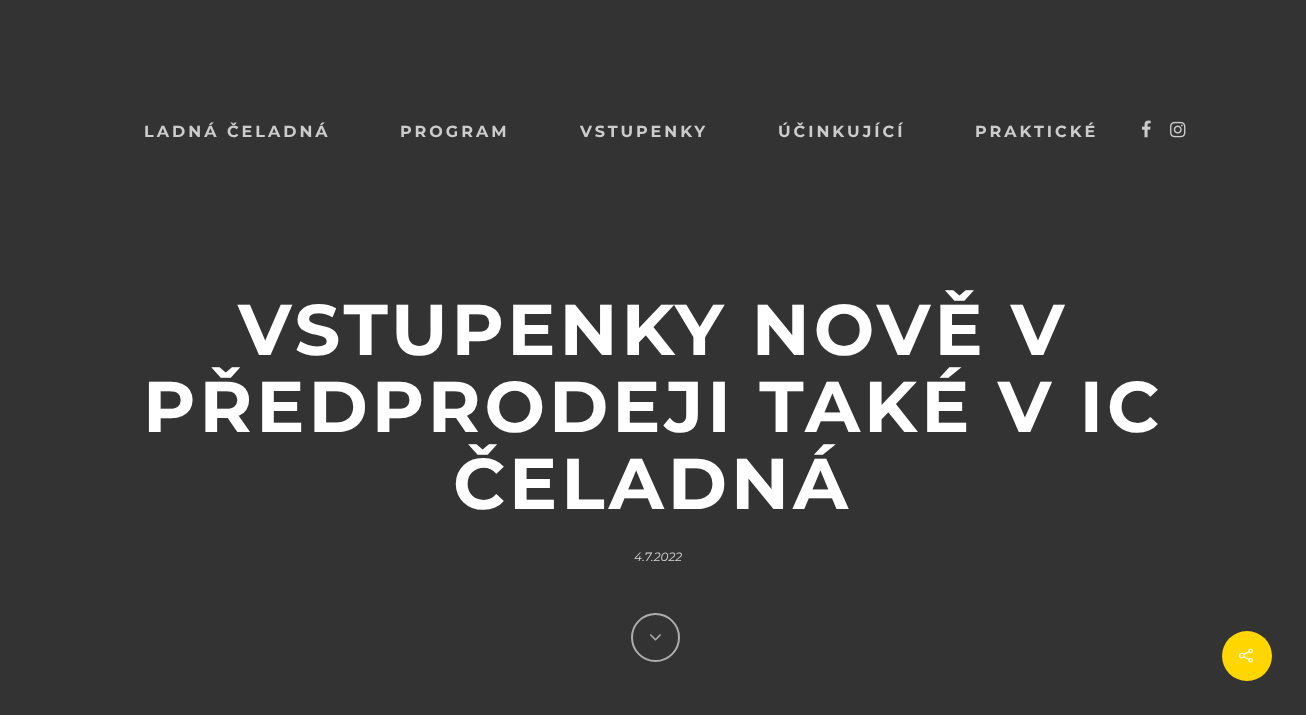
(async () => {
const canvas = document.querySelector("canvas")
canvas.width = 1306
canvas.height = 715
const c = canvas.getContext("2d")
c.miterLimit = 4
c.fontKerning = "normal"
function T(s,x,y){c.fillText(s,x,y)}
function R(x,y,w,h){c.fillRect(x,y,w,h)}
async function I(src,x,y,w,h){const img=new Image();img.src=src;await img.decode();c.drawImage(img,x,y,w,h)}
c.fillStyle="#333"
R(0,0,1306,715)
c.letterSpacing="3px"
c.font="bold 16px Montserrat"
c.fillStyle="#ccc"
T("LADNÁ ČELADNÁ",144,137)
T("PROGRAM",400,137)
T("VSTUPENKY",580,137)
T("ÚČINKUJÍCÍ",778,137)
T("PRAKTICKÉ",975,137)
await I("1.png",1141,120,10,18)
await I("2.png",1170,121,16,17)
c.letterSpacing="4px"
c.font="bold 71.8px Montserrat"
c.fillStyle="#fff"
T("VSTUPENKY NOVĚ V",238,355)
T("PŘEDPRODEJI TAKÉ V IC",143,432)
T("ČELADNÁ",453,509)
c.letterSpacing="0px"
c.font="italic 100 12px Montserrat"
c.fillStyle="#d6d6d6"
T("4.7.2022",634,561)
c.beginPath()
c.arc(655.5,637.5,23.5,0,7)
c.strokeStyle="#adadad"
c.lineWidth=2
c.stroke()
await I("3.png",650,634,11,7)
c.fillStyle="#ffd600"
c.beginPath()
c.arc(1247,656,25,0,7)
c.fill()
await I("4.png",1239,648,14,15)
})()
